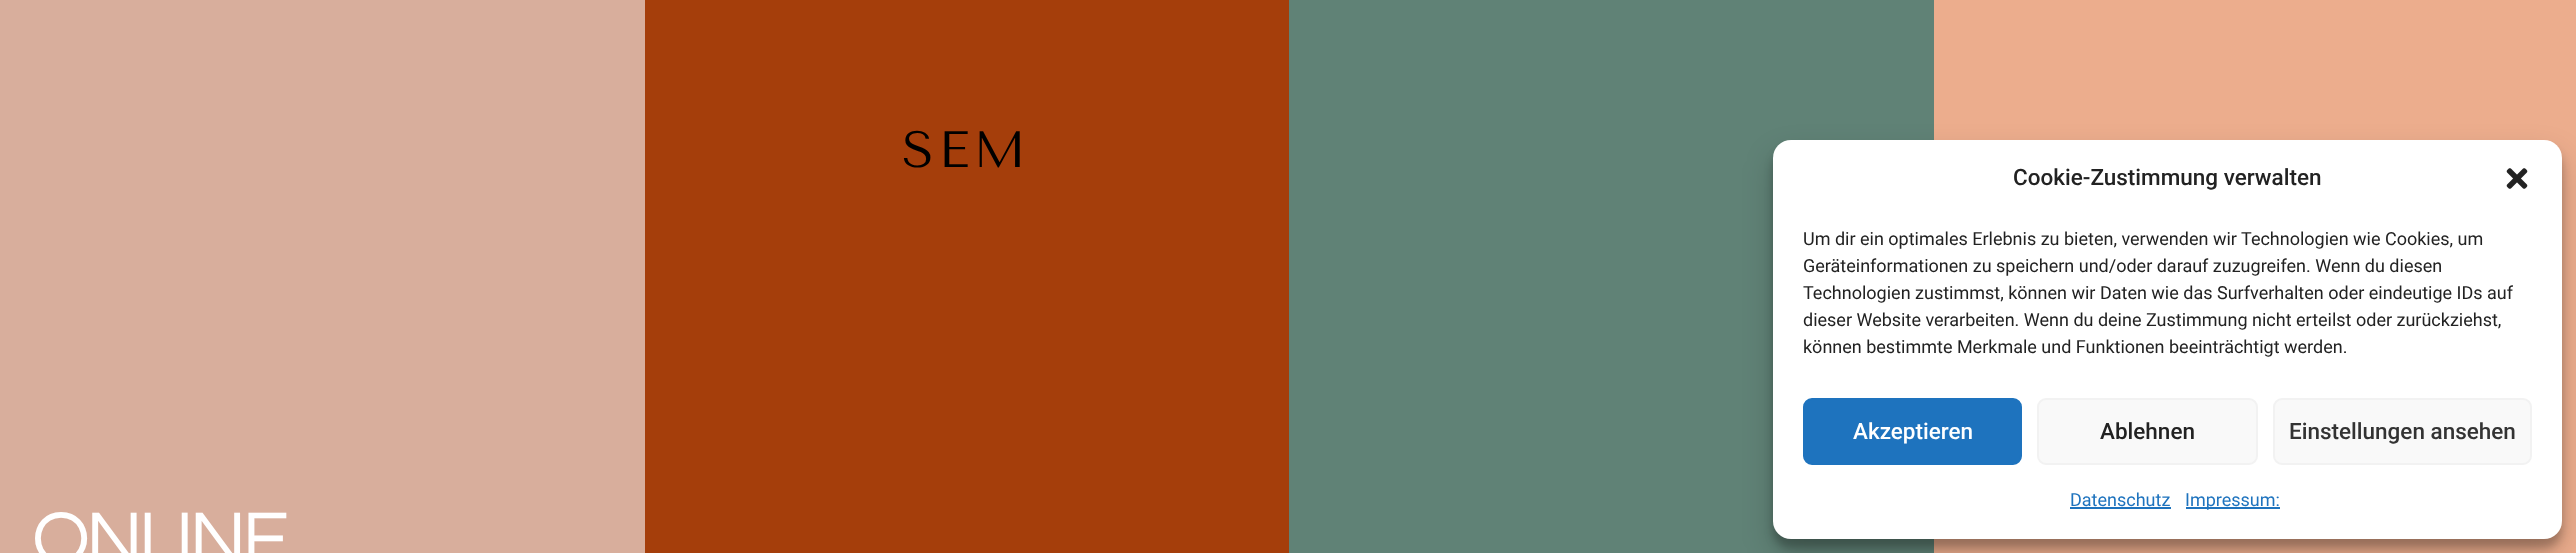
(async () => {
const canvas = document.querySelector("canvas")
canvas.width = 2576
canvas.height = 553
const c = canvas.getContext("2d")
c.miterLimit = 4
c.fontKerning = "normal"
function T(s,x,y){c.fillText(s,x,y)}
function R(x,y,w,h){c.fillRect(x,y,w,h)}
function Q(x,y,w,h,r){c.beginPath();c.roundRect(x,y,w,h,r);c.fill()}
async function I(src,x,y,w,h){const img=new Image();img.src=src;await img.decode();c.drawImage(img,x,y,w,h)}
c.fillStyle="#d8ae9c"
R(0,0,2576,553)
c.fillStyle="#a53e0b"
R(645,0,644,553)
c.letterSpacing="4.5px"
c.font="51px Tenor Sans"
c.fillStyle="#000"
T("SEM",902,167)
c.fillStyle="#608276"
R(1289,0,645,553)
c.fillStyle="#ecad8d"
R(1934,0,642,553)
c.letterSpacing="-4.25px"
c.font="77.5px Questrial"
c.fillStyle="#fff"
T("ONLINE",32,564)
c.fillStyle="#0000003b"
c.filter="blur(4.5px)"
c.beginPath()
c.roundRect(1773,149,789,399,18)
c.fill()
c.filter="none"
c.fillStyle="#00000030"
c.filter="blur(15px)"
c.beginPath()
c.roundRect(1773,155,789,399,18)
c.fill()
c.filter="none"
c.fillStyle="#fff"
Q(1773,140,789,399,18)
c.letterSpacing="0px"
c.font="500 22.5px Roboto"
c.fillStyle="#222"
T("Cookie-Zustimmung verwalten",2013,185)
await I("1.png",2506,168,22,21)
c.font="18px Roboto"
T("Um dir ein optimales Erlebnis zu bieten, verwenden wir Technologien wie Cookies, um",1803,245)
T("Geräteinformationen zu speichern und/oder darauf zuzugreifen. Wenn du diesen",1803,272)
T("Technologien zustimmst, können wir Daten wie das Surfverhalten oder eindeutige IDs auf",1803,299)
T("dieser Website verarbeiten. Wenn du deine Zustimmung nicht erteilst oder zurückziehst,",1803,326)
T("können bestimmte Merkmale und Funktionen beeinträchtigt werden.",1803,353)
c.fillStyle="#1e73be"
c.beginPath()
c.roundRect(1804,399,217,65,8)
c.fill()
c.strokeStyle="#1e73be"
c.lineWidth=2
c.stroke()
c.font="500 22.5px Roboto"
c.fillStyle="#fff"
T("Akzeptieren",1853,439)
c.fillStyle="#f9f9f9"
c.beginPath()
c.roundRect(2038,399,219,65,8)
c.fill()
c.strokeStyle="#f2f2f2"
c.stroke()
c.fillStyle="#222"
T("Ablehnen",2100,439)
c.fillStyle="#f9f9f9"
c.beginPath()
c.roundRect(2274,399,257,65,8)
c.fill()
c.stroke()
c.fillStyle="#333"
T("Einstellungen ansehen",2289,439)
c.font="18px Roboto"
c.fillStyle="#1e73be"
T("Datenschutz",2070,506)
R(2070,507,101,2)
R(2186,507,94,2)
T("Impressum:",2185,506)
})()
